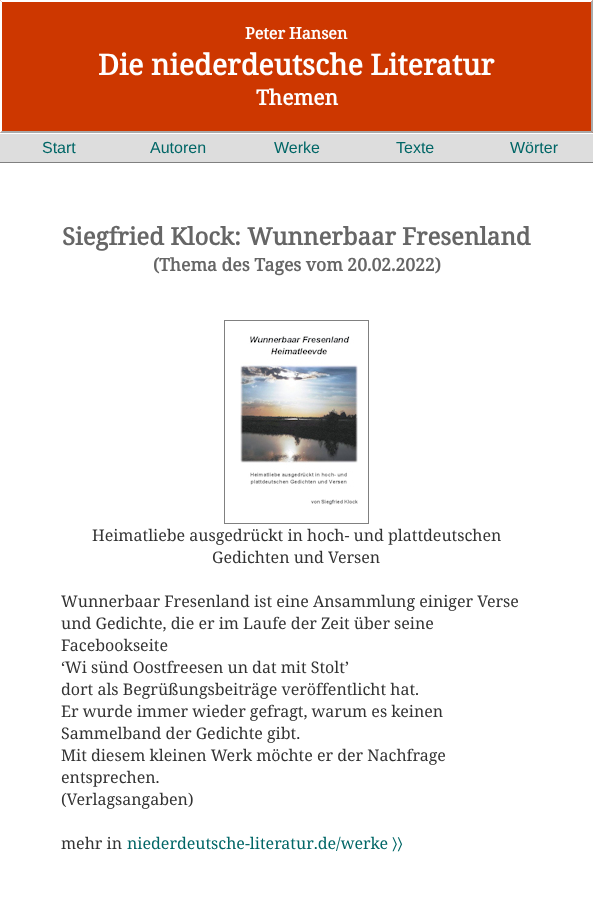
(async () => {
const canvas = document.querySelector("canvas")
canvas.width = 593
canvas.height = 919
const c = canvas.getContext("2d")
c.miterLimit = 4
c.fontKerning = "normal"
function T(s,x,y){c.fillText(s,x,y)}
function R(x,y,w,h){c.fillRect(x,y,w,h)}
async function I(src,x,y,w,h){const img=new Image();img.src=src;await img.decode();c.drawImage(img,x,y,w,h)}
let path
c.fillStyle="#fff"
R(0,0,593,919)
c.fillStyle="#cd3700"
R(0,0,593,133)
c.fillStyle="#fff"
path = new Path2D("M0 0h593l-2 2h-589z")
c.fill(path)
c.fillStyle="#aaa"
path = new Path2D("M593 0v133l-2-2v-129z")
c.fill(path)
path = new Path2D("M593 133h-593l2-2h589z")
c.fill(path)
c.fillStyle="#fff"
path = new Path2D("M0 133v-133l2 2v129z")
c.fill(path)
c.font="bold 16px Noto Serif"
T("Peter Hansen",245,39)
c.font="bold 28.75px Noto Serif"
T("Die niederdeutsche Literatur",98,75)
c.font="bold 21px Noto Serif"
T("Themen",256,105)
c.fillStyle="#ddd"
R(0,134,593,28)
c.fillStyle="#808080"
R(0,162,593,1)
c.font="16px Liberation Sans"
c.fillStyle="#066"
T("Start",42,153)
T("Autoren",150,153)
T("Werke",274,153)
T("Texte",396,153)
T("Wörter",510,153)
c.font="bold 24px Noto Serif"
c.fillStyle="#666"
T("Siegfried Klock: Wunnerbaar Fresenland",62,245)
c.font="bold 17.6px Noto Serif"
T("(Thema des Tages vom 20.02.2022)",153,271)
c.strokeStyle="#808080"
c.strokeRect(224.5,320.5,144,203)
await I("1.png",240,336,118,169)
c.font="16px Noto Serif"
c.fillStyle="#333"
T("Heimatliebe ausgedrückt in hoch- und plattdeutschen",92,541)
T("Gedichten und Versen",212,563)
T("Wunnerbaar Fresenland ist eine Ansammlung einiger Verse",61,607)
T("und Gedichte, die er im Laufe der Zeit über seine",61,629)
T("Facebookseite",61,651)
T("‘Wi sünd Oostfreesen un dat mit Stolt’",61,673)
T("dort als Begrüßungsbeiträge veröffentlicht hat.",61,695)
T("Er wurde immer wieder gefragt, warum es keinen",61,717)
T("Sammelband der Gedichte gibt.",61,739)
T("Mit diesem kleinen Werk möchte er der Nachfrage",61,761)
T("entsprechen.",61,783)
T("(Verlagsangaben)",61,805)
T("mehr in",61,849)
c.fillStyle="#066"
T("niederdeutsche-literatur.de/werke",127,849)
c.font="16px FreeSans"
T("〉〉",392,849)
})()
